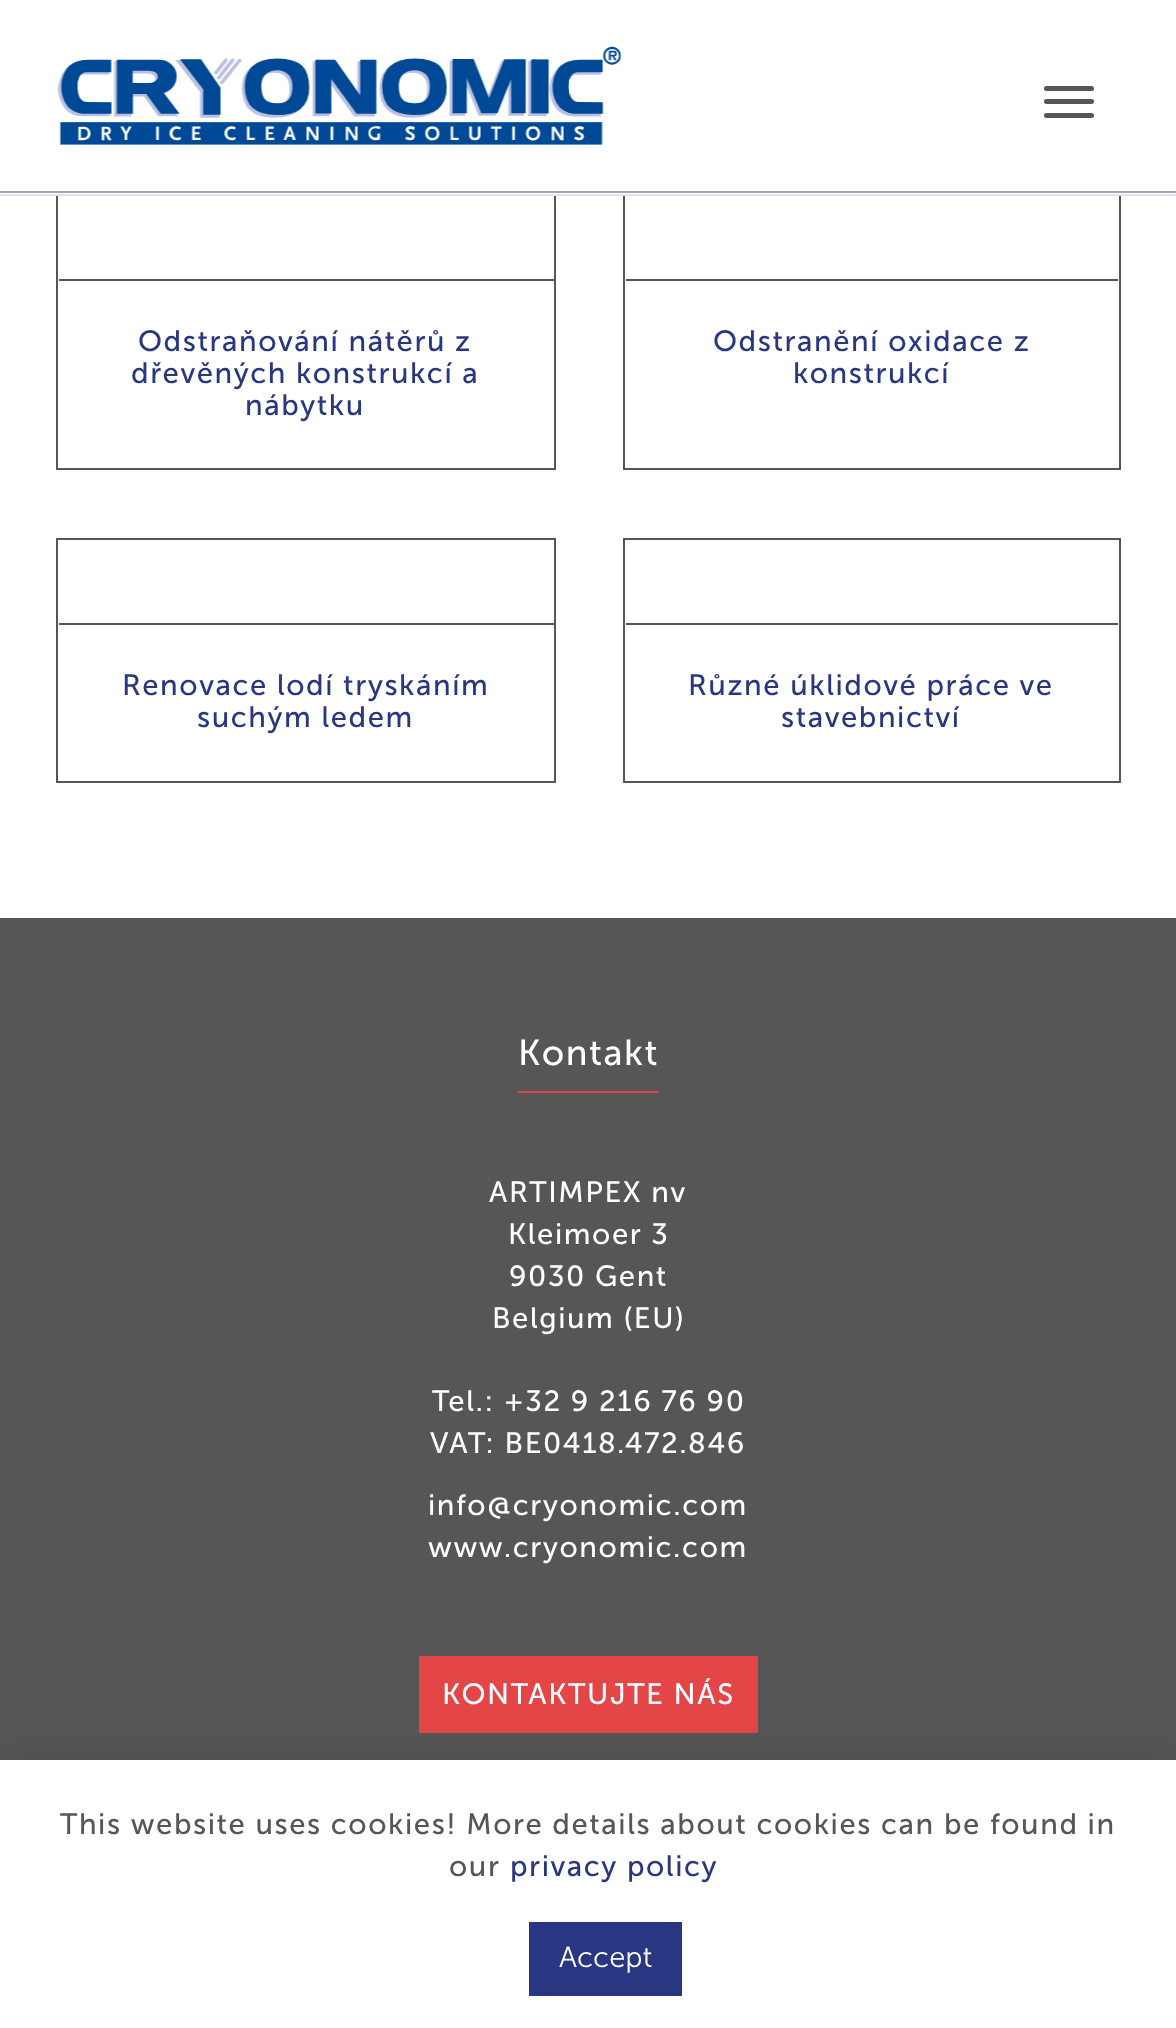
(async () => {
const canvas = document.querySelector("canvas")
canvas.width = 1176
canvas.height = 2028
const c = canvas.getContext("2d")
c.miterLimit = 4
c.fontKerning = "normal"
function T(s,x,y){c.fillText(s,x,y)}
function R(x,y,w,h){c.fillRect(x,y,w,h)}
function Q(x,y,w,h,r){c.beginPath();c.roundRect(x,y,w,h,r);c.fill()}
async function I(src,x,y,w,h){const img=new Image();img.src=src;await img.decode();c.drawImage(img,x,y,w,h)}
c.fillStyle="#fff"
R(0,0,1176,2028)
c.strokeStyle="#565656"
c.lineWidth=2
c.strokeRect(57,195,498,274)
c.strokeRect(624,195,496,274)
c.fillStyle="#e1e4ee"
R(0,194,1176,2)
c.fillStyle="#a4a7b9"
R(0,191,1176,2)
await I("1.png",58,46,563,99)
c.fillStyle="#565656"
Q(1044,86,50,5,2.5)
Q(1044,99,50,5,2.5)
Q(1044,113,50,5,2.5)
R(59,279,495,2)
c.letterSpacing="1.57px"
c.font="29.25px 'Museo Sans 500'"
c.fillStyle="#293782"
T("Odstraňování nátěrů z",138,351)
T("dřevěných konstrukcí a",131,383)
T("nábytku",245,415)
c.fillStyle="#565656"
R(626,279,492,2)
c.fillStyle="#293782"
T("Odstranění oxidace z",713,351)
T("konstrukcí",793,383)
c.strokeRect(57,539,498,243)
c.fillStyle="#565656"
R(59,623,495,2)
c.fillStyle="#293782"
T("Renovace lodí tryskáním",122,695)
T("suchým ledem",197,727)
c.strokeRect(624,539,496,243)
c.fillStyle="#565656"
R(626,623,492,2)
c.fillStyle="#293782"
T("Různé úklidové práce ve",688,695)
T("stavebnictví",781,727)
c.fillStyle="#565656"
R(0,918,1176,842)
c.fillStyle="#e44647"
R(518,1091,141,2)
c.font="36px 'Museo Sans 500'"
c.fillStyle="#fff"
T("Kontakt",518,1065)
c.font="29.25px 'Museo Sans 500'"
T("ARTIMPEX nv",489,1202)
T("Kleimoer 3",508,1244)
T("9030 Gent",509,1286)
T("Belgium (EU)",492,1328)
T("Tel.: +32 9 216 76 90",432,1411)
T("VAT: BE0418.472.846",430,1453)
T("info@cryonomic.com",428,1515)
T("www.cryonomic.com",428,1557)
c.fillStyle="#e44647"
R(419,1656,339,77)
c.fillStyle="#fff"
T("KONTAKTUJTE NÁS",442,1704)
c.fillStyle="#0000001a"
c.filter="blur(17px)"
c.beginPath()
c.rect(0,1760,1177,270)
c.fill()
c.filter="none"
c.fillStyle="#fff"
R(0,1760,1176,268)
c.fillStyle="#565656"
T("This website uses cookies! More details about cookies can be found in",60,1834)
T("our",449,1876)
c.fillStyle="#293782"
T("privacy policy",510,1876)
R(529,1922,153,74)
c.letterSpacing="0px"
c.font="300 29.25px 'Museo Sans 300'"
c.fillStyle="#fff"
T("Accept",559,1967)
})()
